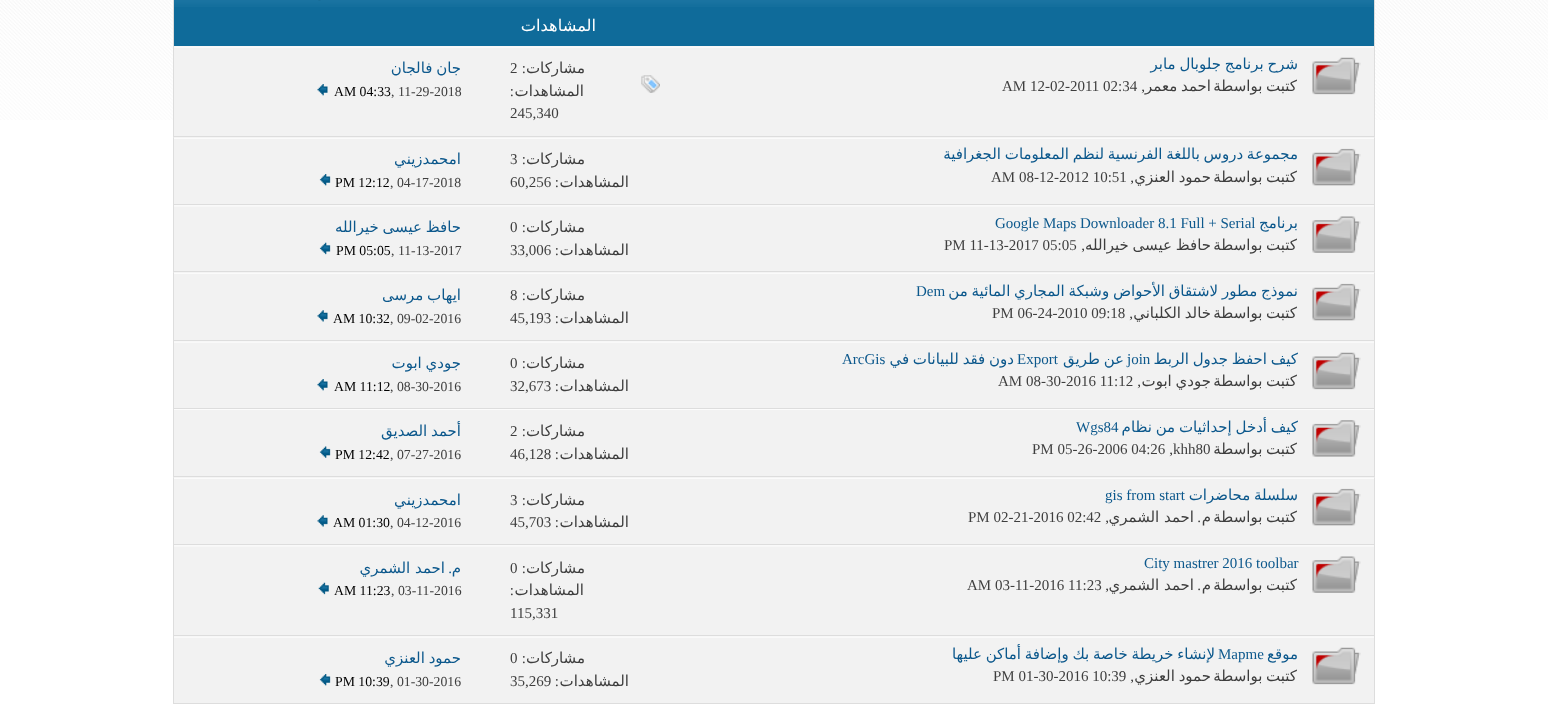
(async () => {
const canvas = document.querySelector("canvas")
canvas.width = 1548
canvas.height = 704
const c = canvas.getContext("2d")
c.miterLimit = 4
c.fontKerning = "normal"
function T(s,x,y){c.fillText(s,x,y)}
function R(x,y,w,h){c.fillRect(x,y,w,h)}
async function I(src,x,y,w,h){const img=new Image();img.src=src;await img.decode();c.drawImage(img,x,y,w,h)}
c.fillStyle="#fff"
R(0,0,1548,704)
await I("1.png",0,0,1548,120)
c.fillStyle="#0f6b9a"
R(174,0,1200,46)
await I("2.png",174,0,1200,7)
c.fillStyle="#ddd"
R(1374,0,1,138)
R(173,0,1,46)
await I("3.png",318,0,3,1)
c.direction="rtl"
c.font="16.25px DejaVu Sans"
c.fillStyle="#fff"
T("المشاهدات",596,31)
c.fillStyle="#f2f2f2"
R(174,46,1200,158)
await I("4.png",174,46,1200,2)
c.fillStyle="#ddd"
R(173,136,1202,1)
R(173,46,1,92)
await I("5.png",1312,57,49,38)
c.wordSpacing="-1px"
c.font="15px DejaVu Sans"
c.fillStyle="#0c588c"
T("شرح برنامج جلوبال مابر",1298,69)
c.fillStyle="#3e3e3e"
T("كتبت بواسطة",1297,91)
T("احمد معمر",1211,91)
c.wordSpacing="0px"
c.font="15px Liberation Serif"
T(",",1145,91)
c.direction="ltr"
T("AM 12-02-2011 02:34",1002,91)
await I("6.png",641,75,19,18)
c.direction="rtl"
c.font="15px DejaVu Sans"
T("مشاركات",585,73)
c.font="15px Liberation Serif"
T(":",526,73)
c.direction="ltr"
T("2",510,73)
c.direction="rtl"
c.font="15px DejaVu Sans"
T("المشاهدات",584,96)
c.font="15px Liberation Serif"
T(":",514,96)
c.direction="ltr"
T("245,340",510,118)
c.wordSpacing="-1px"
c.direction="rtl"
c.font="15px DejaVu Sans"
c.fillStyle="#0c588c"
T("جان فالجان",461,73)
c.wordSpacing="0px"
c.direction="ltr"
c.font="13.75px Liberation Serif"
c.fillStyle="#3e3e3e"
T(", 11-29-2018",391,96)
c.fillStyle="#000"
T("AM 04:33",334,96)
await I("7.png",317,84,11,12)
await I("8.png",173,137,1202,2)
c.fillStyle="#ddd"
R(1374,138,1,135)
R(173,204,1202,1)
R(173,138,1,67)
await I("9.png",1312,148,49,38)
c.wordSpacing="-1px"
c.direction="rtl"
c.font="15px DejaVu Sans"
c.fillStyle="#0c588c"
T("مجموعة دروس باللغة الفرنسية لنظم المعلومات الجغرافية",1298,159)
c.fillStyle="#3e3e3e"
T("كتبت بواسطة",1297,182)
T("حمود العنزي",1211,182)
c.wordSpacing="0px"
c.font="15px Liberation Serif"
T(",",1134,182)
c.direction="ltr"
T("AM 08-12-2012 10:51",991,182)
c.direction="rtl"
c.font="15px DejaVu Sans"
T("مشاركات",585,164)
c.font="15px Liberation Serif"
T(":",526,164)
c.direction="ltr"
T("3",510,164)
c.direction="rtl"
c.font="15px DejaVu Sans"
T("المشاهدات",629,187)
c.font="15px Liberation Serif"
T(":",559,187)
c.direction="ltr"
T("60,256",510,187)
c.direction="rtl"
c.font="15px DejaVu Sans"
c.fillStyle="#0c588c"
T("امحمدزيني",461,164)
c.direction="ltr"
c.font="13.75px Liberation Serif"
c.fillStyle="#3e3e3e"
T(", 04-17-2018",390,187)
c.fillStyle="#000"
T("PM 12:12",335,187)
await I("10.png",319,174,12,12)
c.fillStyle="#f2f2f2"
R(174,205,1200,135)
await I("11.png",174,205,1200,2)
c.fillStyle="#ddd"
R(173,271,1202,1)
R(173,205,1,68)
await I("12.png",1312,216,49,37)
c.direction="rtl"
c.font="15px DejaVu Sans"
c.fillStyle="#0c588c"
T("برنامج",1298,228)
c.direction="ltr"
c.font="15px Liberation Serif"
T("Google Maps Downloader 8.1 Full + Serial",995,228)
c.wordSpacing="-1px"
c.direction="rtl"
c.font="15px DejaVu Sans"
c.fillStyle="#3e3e3e"
T("كتبت بواسطة",1297,250)
T("حافظ عيسى خيرالله",1211,250)
c.wordSpacing="0px"
c.font="15px Liberation Serif"
T(",",1085,250)
c.direction="ltr"
T("PM 11-13-2017 05:05",944,250)
c.direction="rtl"
c.font="15px DejaVu Sans"
T("مشاركات",585,232)
c.font="15px Liberation Serif"
T(":",526,232)
c.direction="ltr"
T("0",510,232)
c.direction="rtl"
c.font="15px DejaVu Sans"
T("المشاهدات",629,255)
c.font="15px Liberation Serif"
T(":",559,255)
c.direction="ltr"
T("33,006",510,255)
c.wordSpacing="-1px"
c.direction="rtl"
c.font="15px DejaVu Sans"
c.fillStyle="#0c588c"
T("حافظ عيسى خيرالله",461,232)
c.wordSpacing="0px"
c.direction="ltr"
c.font="13.75px Liberation Serif"
c.fillStyle="#3e3e3e"
T(", 11-13-2017",391,255)
c.fillStyle="#000"
T("PM 05:05",336,255)
await I("13.png",319,242,12,13)
await I("8.png",173,272,1202,2)
c.fillStyle="#ddd"
R(1374,273,1,136)
R(173,340,1202,1)
R(173,273,1,68)
await I("9.png",1312,283,49,38)
c.wordSpacing="-1px"
c.direction="rtl"
c.font="15px DejaVu Sans"
c.fillStyle="#0c588c"
T("نموذج مطور لاشتقاق الأحواض وشبكة المجاري المائية من",1298,296)
c.wordSpacing="0px"
c.direction="ltr"
c.font="15px Liberation Serif"
T("Dem",916,296)
c.wordSpacing="-1px"
c.direction="rtl"
c.font="15px DejaVu Sans"
c.fillStyle="#3e3e3e"
T("كتبت بواسطة",1297,318)
T("خالد الكلباني",1211,318)
c.wordSpacing="0px"
c.font="15px Liberation Serif"
T(",",1133,318)
c.direction="ltr"
T("PM 06-24-2010 09:18",992,318)
c.direction="rtl"
c.font="15px DejaVu Sans"
T("مشاركات",585,300)
c.font="15px Liberation Serif"
T(":",526,300)
c.direction="ltr"
T("8",510,300)
c.direction="rtl"
c.font="15px DejaVu Sans"
T("المشاهدات",629,323)
c.font="15px Liberation Serif"
T(":",559,323)
c.direction="ltr"
T("45,193",510,323)
c.wordSpacing="-1px"
c.direction="rtl"
c.font="15px DejaVu Sans"
c.fillStyle="#0c588c"
T("ايهاب مرسى",461,300)
c.wordSpacing="0px"
c.direction="ltr"
c.font="13.75px Liberation Serif"
c.fillStyle="#3e3e3e"
T(", 09-02-2016",390,323)
c.fillStyle="#000"
T("AM 10:32",333,323)
await I("14.png",317,310,11,12)
c.fillStyle="#f2f2f2"
R(174,341,1200,67)
await I("4.png",174,341,1200,2)
c.fillStyle="#ddd"
R(173,408,1202,1)
R(173,341,1,68)
await I("5.png",1312,352,49,38)
c.wordSpacing="-1px"
c.direction="rtl"
c.font="15px DejaVu Sans"
c.fillStyle="#0c588c"
T("كيف احفظ جدول الربط",1298,364)
c.wordSpacing="0px"
c.direction="ltr"
c.font="15px Liberation Serif"
T("join",1127,364)
c.wordSpacing="-1px"
c.direction="rtl"
c.font="15px DejaVu Sans"
T("عن طريق",1124,364)
c.wordSpacing="0px"
c.direction="ltr"
c.font="15px Liberation Serif"
T("Export",1017,364)
c.wordSpacing="-1px"
c.direction="rtl"
c.font="15px DejaVu Sans"
T("دون فقد للبيانات في",1014,364)
c.wordSpacing="0px"
c.direction="ltr"
c.font="15px Liberation Serif"
T("ArcGis",842,364)
c.wordSpacing="-1px"
c.direction="rtl"
c.font="15px DejaVu Sans"
c.fillStyle="#3e3e3e"
T("كتبت بواسطة",1297,386)
T("جودي ابوت",1211,386)
c.wordSpacing="0px"
c.font="15px Liberation Serif"
T(",",1141,386)
c.direction="ltr"
T("AM 08-30-2016 11:12",998,386)
c.direction="rtl"
c.font="15px DejaVu Sans"
T("مشاركات",585,368)
c.font="15px Liberation Serif"
T(":",526,368)
c.direction="ltr"
T("0",510,368)
c.direction="rtl"
c.font="15px DejaVu Sans"
T("المشاهدات",629,391)
c.font="15px Liberation Serif"
T(":",559,391)
c.direction="ltr"
T("32,673",510,391)
c.wordSpacing="-1px"
c.direction="rtl"
c.font="15px DejaVu Sans"
c.fillStyle="#0c588c"
T("جودي ابوت",461,368)
c.wordSpacing="0px"
c.direction="ltr"
c.font="13.75px Liberation Serif"
c.fillStyle="#3e3e3e"
T(", 08-30-2016",390,391)
c.fillStyle="#000"
T("AM 11:12",334,391)
await I("7.png",317,379,11,12)
c.fillStyle="#f2f2f2"
R(174,410,1200,134)
c.fillStyle="#fcfcfc"
R(173,409,1202,1)
c.fillStyle="#ddd"
R(1374,409,1,69)
R(173,476,1202,1)
R(173,409,1,69)
await I("15.png",1312,420,49,37)
c.wordSpacing="-1px"
c.direction="rtl"
c.font="15px DejaVu Sans"
c.fillStyle="#0c588c"
T("كيف أدخل إحداثيات من نظام",1298,432)
c.wordSpacing="0px"
c.direction="ltr"
c.font="15px Liberation Serif"
T("Wgs84",1076,432)
c.wordSpacing="-1px"
c.direction="rtl"
c.font="15px DejaVu Sans"
c.fillStyle="#3e3e3e"
T("كتبت بواسطة",1297,454)
c.wordSpacing="0px"
c.direction="ltr"
c.font="15px Liberation Serif"
T("khh80",1173,454)
c.direction="rtl"
T(",",1173,454)
c.direction="ltr"
T("PM 05-26-2006 04:26",1032,454)
c.direction="rtl"
c.font="15px DejaVu Sans"
T("مشاركات",585,436)
c.font="15px Liberation Serif"
T(":",526,436)
c.direction="ltr"
T("2",510,436)
c.direction="rtl"
c.font="15px DejaVu Sans"
T("المشاهدات",629,459)
c.font="15px Liberation Serif"
T(":",559,459)
c.direction="ltr"
T("46,128",510,459)
c.wordSpacing="-1px"
c.direction="rtl"
c.font="15px DejaVu Sans"
c.fillStyle="#0c588c"
T("أحمد الصديق",461,436)
c.wordSpacing="0px"
c.direction="ltr"
c.font="13.75px Liberation Serif"
c.fillStyle="#3e3e3e"
T(", 07-27-2016",390,459)
c.fillStyle="#000"
T("PM 12:42",335,459)
await I("16.png",319,446,12,12)
await I("8.png",173,477,1202,2)
c.fillStyle="#ddd"
R(1374,478,1,226)
R(173,544,1202,1)
R(173,478,1,67)
await I("9.png",1312,488,49,38)
c.wordSpacing="-1px"
c.direction="rtl"
c.font="15px DejaVu Sans"
c.fillStyle="#0c588c"
T("سلسلة محاضرات",1298,500)
c.wordSpacing="0px"
c.direction="ltr"
c.font="15px Liberation Serif"
T("gis from start",1105,500)
c.wordSpacing="-1px"
c.direction="rtl"
c.font="15px DejaVu Sans"
c.fillStyle="#3e3e3e"
T("كتبت بواسطة",1297,522)
c.wordSpacing="0px"
T("م",1211,522)
c.font="15px Liberation Serif"
T(".",1201,522)
c.font="15px DejaVu Sans"
T("احمد الشمري",1194,522)
c.font="15px Liberation Serif"
T(",",1109,522)
c.direction="ltr"
T("PM 02-21-2016 02:42",968,522)
c.direction="rtl"
c.font="15px DejaVu Sans"
T("مشاركات",585,505)
c.font="15px Liberation Serif"
T(":",526,505)
c.direction="ltr"
T("3",510,505)
c.direction="rtl"
c.font="15px DejaVu Sans"
T("المشاهدات",629,527)
c.font="15px Liberation Serif"
T(":",559,527)
c.direction="ltr"
T("45,703",510,527)
c.direction="rtl"
c.font="15px DejaVu Sans"
c.fillStyle="#0c588c"
T("امحمدزيني",461,505)
c.direction="ltr"
c.font="13.75px Liberation Serif"
c.fillStyle="#3e3e3e"
T(", 04-12-2016",390,527)
c.fillStyle="#000"
T("AM 01:30",333,527)
await I("14.png",317,515,11,12)
c.fillStyle="#f2f2f2"
R(174,545,1200,90)
await I("17.png",174,545,1200,2)
c.fillStyle="#ddd"
R(173,635,1202,1)
R(173,545,1,91)
await I("12.png",1312,556,49,37)
c.font="15px Liberation Serif"
c.fillStyle="#0c588c"
T("City mastrer 2016 toolbar",1144,568)
c.wordSpacing="-1px"
c.direction="rtl"
c.font="15px DejaVu Sans"
c.fillStyle="#3e3e3e"
T("كتبت بواسطة",1297,590)
c.wordSpacing="0px"
T("م",1211,590)
c.font="15px Liberation Serif"
T(".",1201,590)
c.font="15px DejaVu Sans"
T("احمد الشمري",1194,590)
c.font="15px Liberation Serif"
T(",",1109,590)
c.direction="ltr"
T("AM 03-11-2016 11:23",967,590)
c.direction="rtl"
c.font="15px DejaVu Sans"
T("مشاركات",585,573)
c.font="15px Liberation Serif"
T(":",526,573)
c.direction="ltr"
T("0",510,573)
c.direction="rtl"
c.font="15px DejaVu Sans"
T("المشاهدات",584,595)
c.font="15px Liberation Serif"
T(":",514,595)
c.direction="ltr"
T("115,331",510,618)
c.direction="rtl"
c.font="15px DejaVu Sans"
c.fillStyle="#0c588c"
T("م",461,573)
c.font="15px Liberation Serif"
T(".",452,573)
c.font="15px DejaVu Sans"
T("احمد الشمري",445,573)
c.direction="ltr"
c.font="13.75px Liberation Serif"
c.fillStyle="#3e3e3e"
T(", 03-11-2016",391,595)
c.fillStyle="#000"
T("AM 11:23",334,595)
await I("18.png",318,582,11,13)
c.fillStyle="#f2f2f2"
R(174,636,1200,67)
await I("4.png",174,636,1200,2)
c.fillStyle="#ddd"
R(173,703,1202,1)
R(173,636,1,68)
await I("5.png",1312,647,49,38)
c.direction="rtl"
c.font="15px DejaVu Sans"
c.fillStyle="#0c588c"
T("موقع",1298,659)
c.wordSpacing="-1px"
T("لإنشاء خريطة خاصة بك وإضافة أماكن عليها",1215,659)
c.wordSpacing="0px"
c.direction="ltr"
c.font="15px Liberation Serif"
T("Mapme",1218,659)
c.wordSpacing="-1px"
c.direction="rtl"
c.font="15px DejaVu Sans"
c.fillStyle="#3e3e3e"
T("كتبت بواسطة",1297,681)
T("حمود العنزي",1211,681)
c.wordSpacing="0px"
c.font="15px Liberation Serif"
T(",",1134,681)
c.direction="ltr"
T("PM 01-30-2016 10:39",993,681)
c.direction="rtl"
c.font="15px DejaVu Sans"
T("مشاركات",585,663)
c.font="15px Liberation Serif"
T(":",526,663)
c.direction="ltr"
T("0",510,663)
c.direction="rtl"
c.font="15px DejaVu Sans"
T("المشاهدات",629,686)
c.font="15px Liberation Serif"
T(":",559,686)
c.direction="ltr"
T("35,269",510,686)
c.wordSpacing="-1px"
c.direction="rtl"
c.font="15px DejaVu Sans"
c.fillStyle="#0c588c"
T("حمود العنزي",461,663)
c.wordSpacing="0px"
c.direction="ltr"
c.font="13.75px Liberation Serif"
c.fillStyle="#3e3e3e"
T(", 01-30-2016",390,686)
c.fillStyle="#000"
T("PM 10:39",335,686)
await I("10.png",319,674,12,12)
})()
